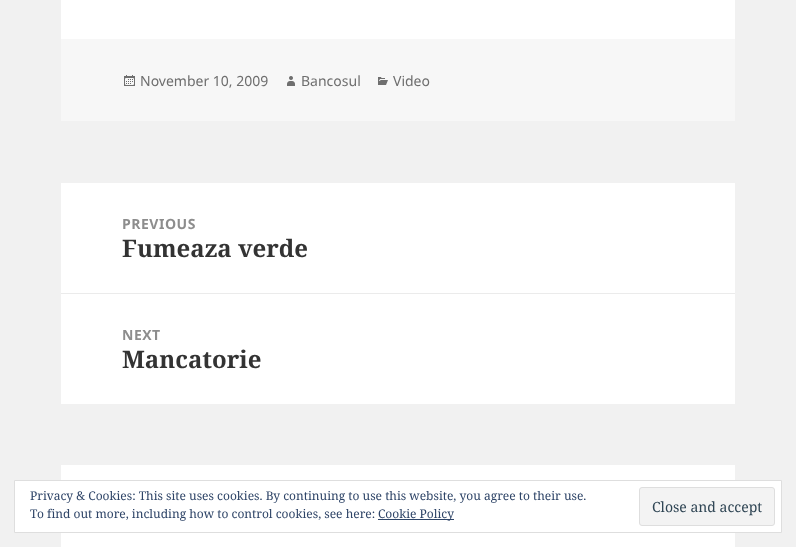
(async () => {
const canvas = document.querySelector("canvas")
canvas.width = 796
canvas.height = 547
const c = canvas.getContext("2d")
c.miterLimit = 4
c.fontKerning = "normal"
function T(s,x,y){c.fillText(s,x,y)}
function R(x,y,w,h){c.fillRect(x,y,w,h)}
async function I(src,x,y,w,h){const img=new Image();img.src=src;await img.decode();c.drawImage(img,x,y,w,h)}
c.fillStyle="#f1f1f1"
R(0,0,796,547)
c.fillStyle="#fff"
R(61,0,674,39)
c.fillStyle="#f7f7f7"
R(61,39,674,82)
await I("1.png",124,75,11,11)
c.font="14px Noto Sans"
c.fillStyle="#6e6e6e"
T("November 10, 2009",140,86)
await I("2.png",287,76,8,10)
T("Bancosul",301,86)
await I("3.png",378,77,10,8)
T("Video",393,86)
c.fillStyle="#fff"
R(61,183,674,221)
c.letterSpacing="0.5px"
c.font="bold 14px Noto Sans"
c.fillStyle="#8d8d8d"
T("PREVIOUS",122,229)
c.letterSpacing="0px"
c.font="bold 24px Noto Serif"
c.fillStyle="#333"
T("Fumeaza verde",122,257)
c.fillStyle="#ebebeb"
R(61,293,674,1)
c.letterSpacing="0.5px"
c.font="bold 14px Noto Sans"
c.fillStyle="#8d8d8d"
T("NEXT",122,340)
c.letterSpacing="0px"
c.font="bold 24px Noto Serif"
c.fillStyle="#333"
T("Mancatorie",122,368)
c.fillStyle="#fff"
R(61,465,674,82)
c.beginPath()
c.rect(14.5,480.5,767,52)
c.fill()
c.strokeStyle="#dedede"
c.stroke()
c.font="12px Noto Serif"
c.fillStyle="#2e4467"
T("Privacy & Cookies: This site uses cookies. By continuing to use this website, you agree to their use.",30,500)
T("To find out more, including how to control cookies, see here:",30,518)
R(378,519,76,1)
T("Cookie Policy",378,518)
c.fillStyle="#f3f3f3"
c.beginPath()
c.roundRect(639.5,487.5,135,38,2.5)
c.fill()
c.stroke()
c.font="14px Noto Serif"
c.fillStyle="#2e4453"
T("Close and accept",652,512)
})()
